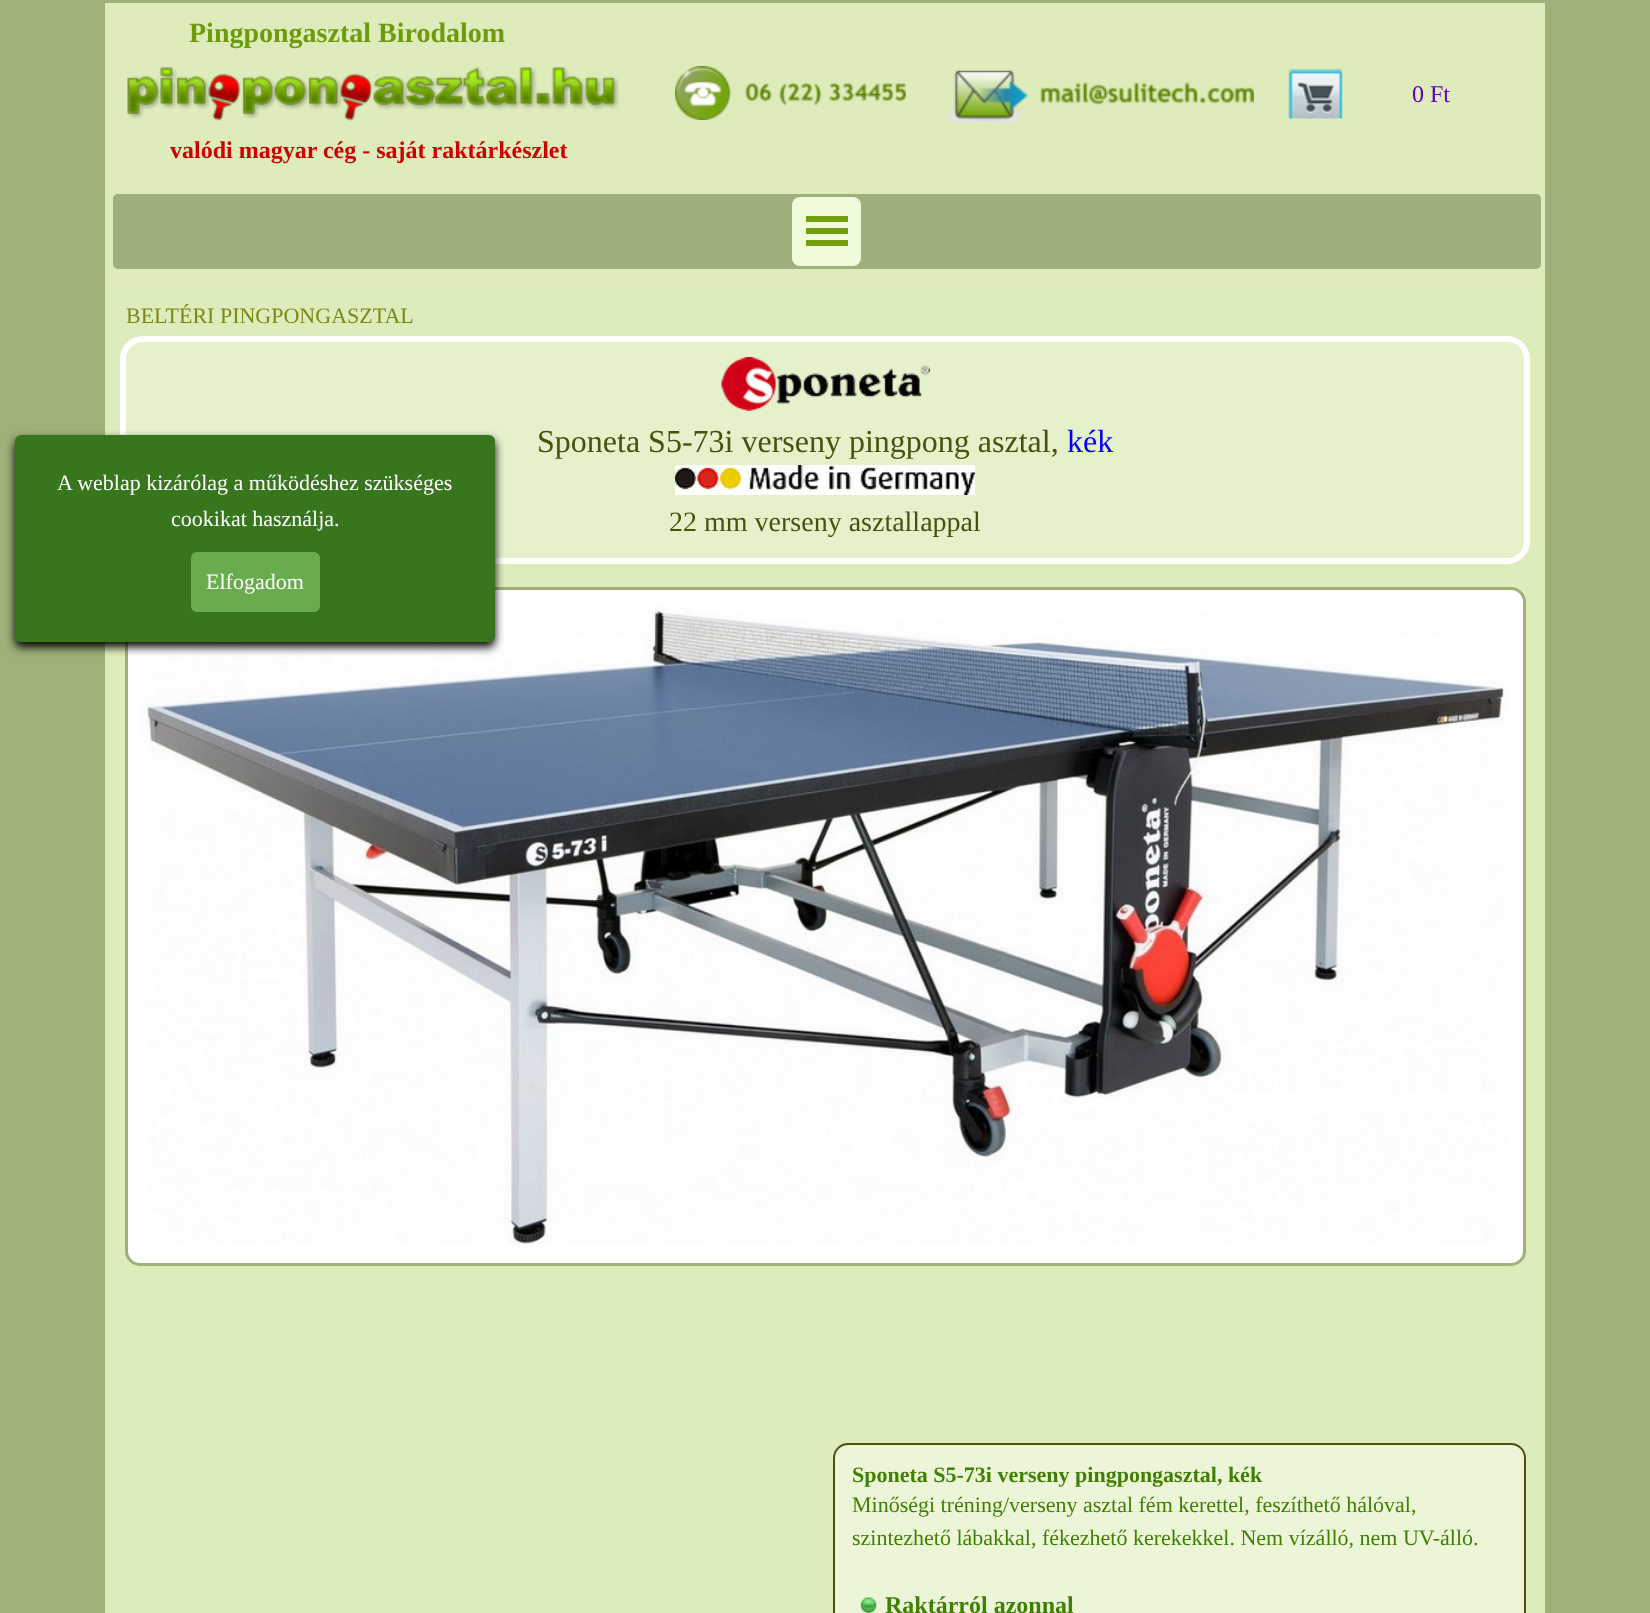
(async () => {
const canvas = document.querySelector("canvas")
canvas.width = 1650
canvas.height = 1613
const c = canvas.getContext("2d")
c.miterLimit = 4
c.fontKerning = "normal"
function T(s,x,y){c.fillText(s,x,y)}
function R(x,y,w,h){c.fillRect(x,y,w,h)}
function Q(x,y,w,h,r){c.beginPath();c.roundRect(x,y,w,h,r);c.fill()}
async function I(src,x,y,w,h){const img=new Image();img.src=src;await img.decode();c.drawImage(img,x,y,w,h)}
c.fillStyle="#9fb178"
R(0,0,1650,1613)
c.fillStyle="#ddecba"
R(105,3,1440,285)
c.font="bold 28px Liberation Serif"
c.fillStyle="#6d9b0d"
T("Pingpongasztal Birodalom",189,42)
await I("1.png",127,67,492,54)
await I("2.png",675,66,231,54)
await I("3.png",942,70,312,53)
await I("4.png",1288,69,55,50)
c.font="24px Liberation Serif"
c.fillStyle="#6000bf"
T("0 Ft",1412,102)
c.font="bold 24px Liberation Serif"
c.fillStyle="#c00"
T("valódi magyar cég - saját raktárkészlet",170,158)
c.fillStyle="#9daf7a"
Q(113,194,1428,75,5)
c.fillStyle="#f0fbdb"
Q(792,197,69,69,8)
c.fillStyle="#719f10"
R(806,216,42,6)
R(806,228,42,6)
R(806,240,42,6)
c.fillStyle="#ddecbb"
R(105,288,1440,1325)
c.font="22px Liberation Serif"
c.fillStyle="#7a8815"
T("BELTÉRI PINGPONGASZTAL",126,323)
c.fillStyle="#e4f1ca"
c.beginPath()
c.roundRect(123,339,1404,222,20)
c.fill()
c.strokeStyle="#fff"
c.lineWidth=6
c.stroke()
await I("5.png",721,357,209,54)
c.font="32px Liberation Serif"
c.fillStyle="#48510d"
T("Sponeta S5-73i verseny pingpong asztal,",537,452)
c.fillStyle="#00f"
T("kék",1067,452)
await I("6.png",675,465,300,30)
c.font="28px Liberation Serif"
c.fillStyle="#48510d"
T("22 mm verseny asztallappal",669,531)
c.fillStyle="#fff"
c.beginPath()
c.roundRect(126.5,588.5,1398,676,13.5)
c.fill()
c.strokeStyle="#9fb178"
c.lineWidth=3
c.stroke()
await I("7.png",141,604,1368,643)
c.fillStyle="#ecf5d8"
c.beginPath()
c.roundRect(834,1444,691,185,14)
c.fill()
c.strokeStyle="#48510d"
c.lineWidth=2
c.stroke()
c.font="bold 22px Liberation Serif"
c.fillStyle="#408000"
T("Sponeta S5-73i verseny pingpongasztal, kék",852,1482)
c.font="22px Liberation Serif"
T("Minőségi tréning/verseny asztal fém kerettel, feszíthető hálóval,",852,1512)
T("szintezhető lábakkal, fékezhető kerekekkel. Nem vízálló, nem UV-álló.",852,1545)
await I("8.png",860,1597,17,16)
c.font="bold 24px Liberation Serif"
T("Raktárról azonnal",885,1613)
c.fillStyle="#000"
c.filter="blur(5px)"
c.beginPath()
c.roundRect(15,440,480,207,6)
c.fill()
c.filter="none"
c.fillStyle="#38761d"
Q(15,435,480,207,6)
c.font="22px Liberation Serif"
c.fillStyle="#fff"
T("A weblap kizárólag a működéshez szükséges",57,490)
T("cookikat használja.",171,526)
c.fillStyle="#69ac4d"
Q(191,552,129,60,6)
c.fillStyle="#fff"
T("Elfogadom",206,589)
})()
